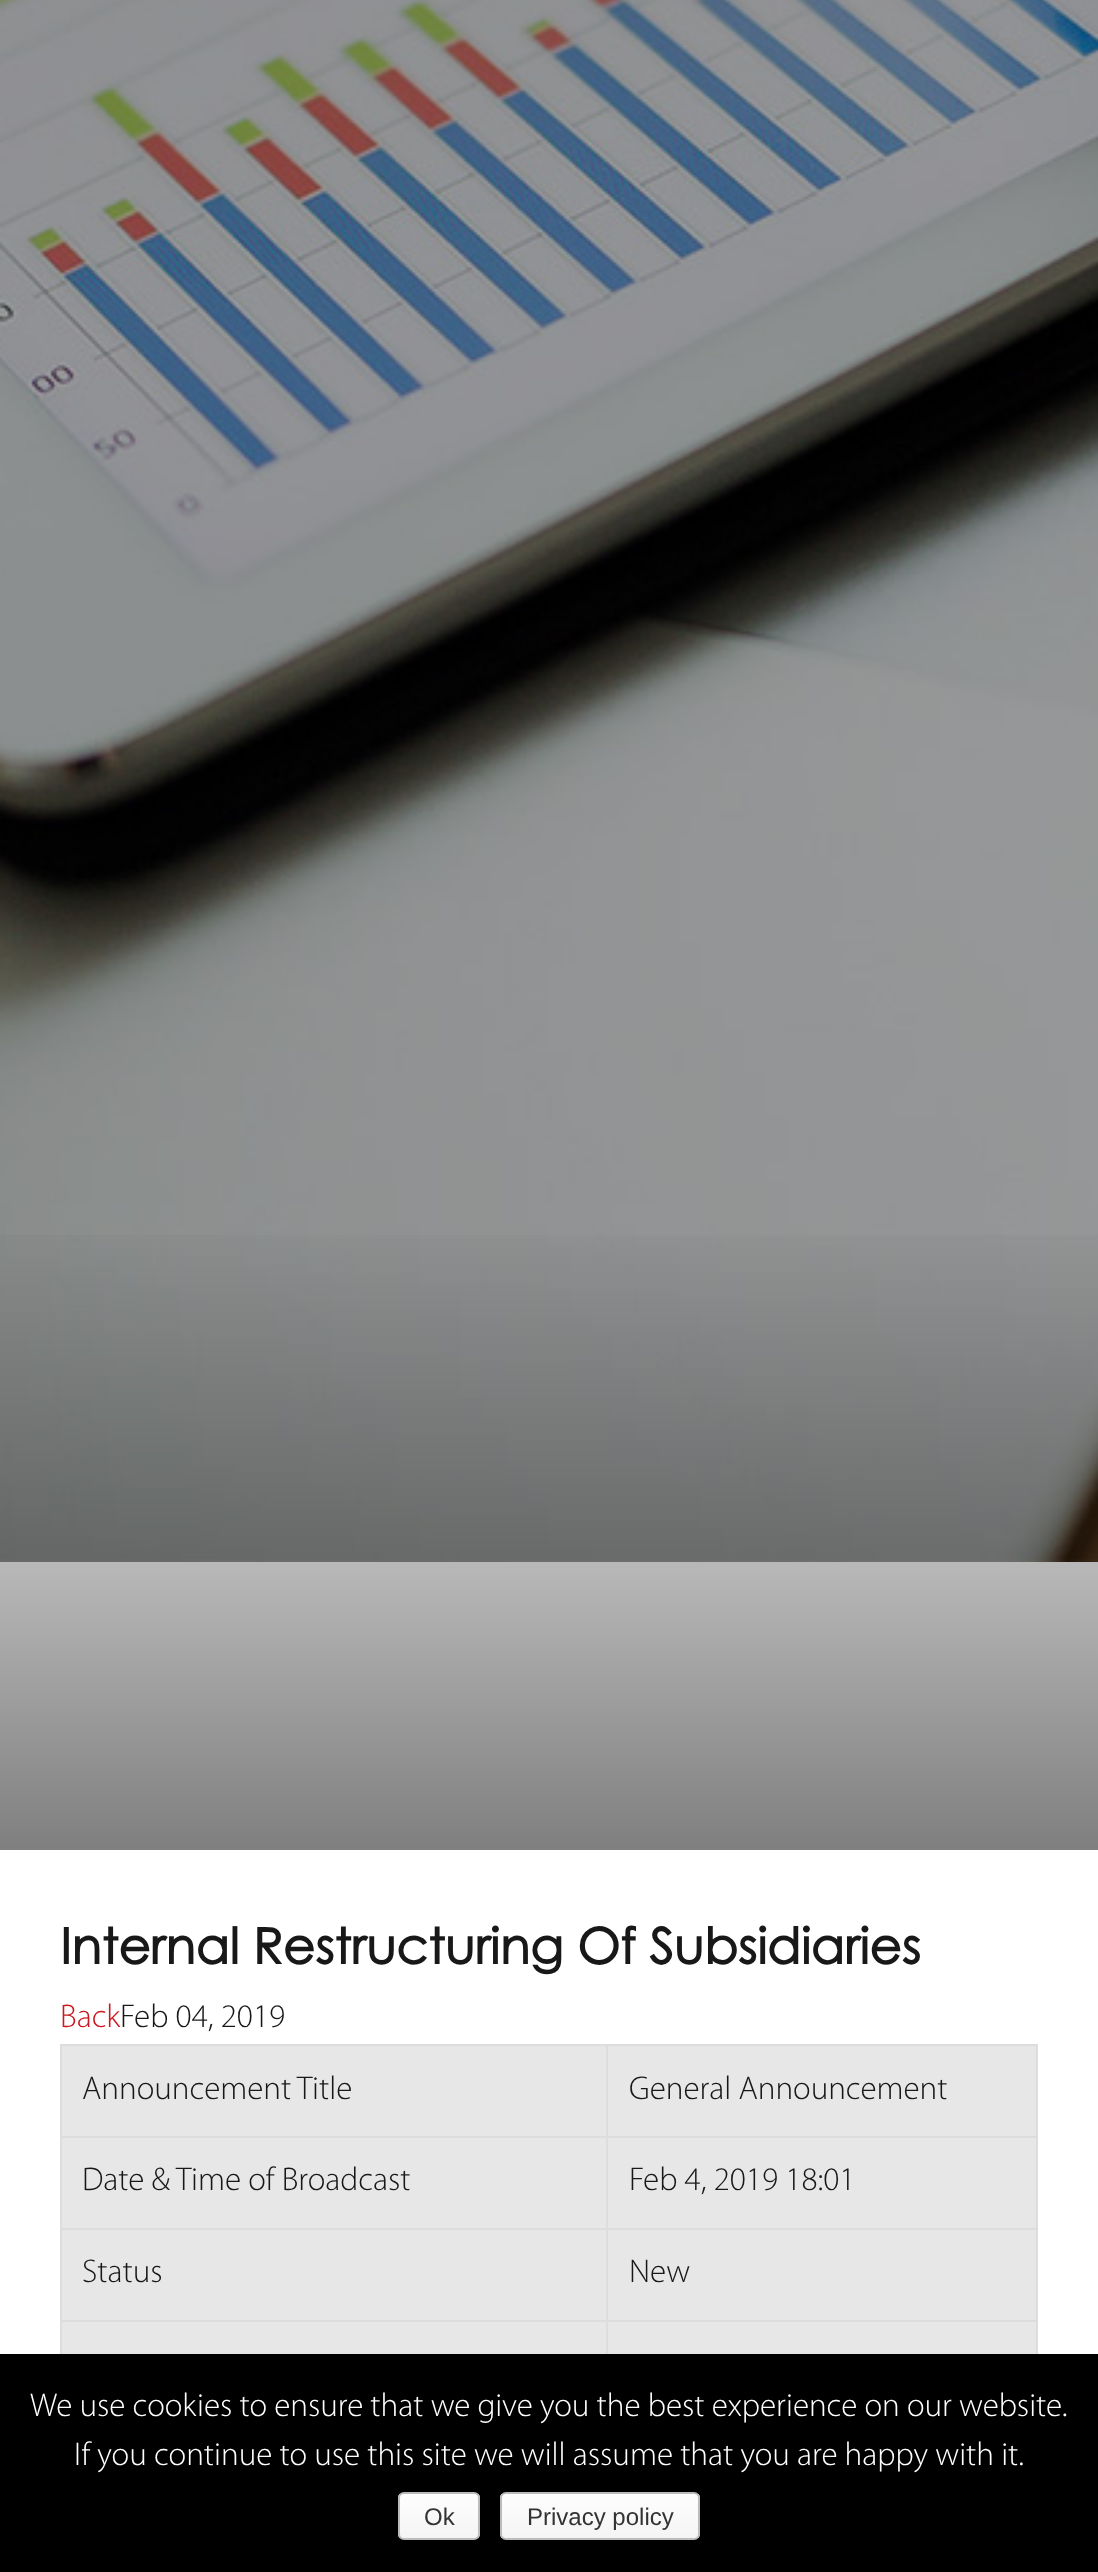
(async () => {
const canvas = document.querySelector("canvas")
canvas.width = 1098
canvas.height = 2572
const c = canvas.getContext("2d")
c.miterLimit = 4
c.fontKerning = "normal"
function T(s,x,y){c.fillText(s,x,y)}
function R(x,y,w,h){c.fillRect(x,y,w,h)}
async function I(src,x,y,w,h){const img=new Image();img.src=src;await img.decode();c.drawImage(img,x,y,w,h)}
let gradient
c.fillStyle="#fff"
R(0,0,1098,2572)
await I("1.png",0,0,1098,1562)
gradient = c.createLinearGradient(549,-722,549,1850)
gradient.addColorStop(0,"#00000080")
gradient.addColorStop(.25,"#00000000")
gradient.addColorStop(.75,"#00000000")
gradient.addColorStop(1,"#00000080")
c.fillStyle = gradient
R(0,1235,1098,615)
c.font="bold 49.5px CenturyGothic"
c.fillStyle="#181818"
T("Internal Restructuring Of Subsidiaries",60,1964)
c.font="300 33px Myriad"
c.fillStyle="#cc171d"
T("Back",60,2027)
c.fillStyle="#181818"
T("Feb 04, 2019",120,2027)
c.fillStyle="#e7e7e7"
R(62,2046,544,90)
c.fillStyle="#ddd"
R(606,2044,432,2)
R(606,2136,432,2)
R(606,2228,432,2)
R(606,2320,432,2)
R(606,2320,2,34)
R(60,2320,548,2)
R(606,2228,2,94)
R(60,2228,548,2)
R(606,2136,2,94)
R(60,2136,548,2)
R(606,2044,2,94)
R(60,2044,548,2)
R(60,2320,2,34)
R(60,2228,2,94)
R(60,2136,2,94)
R(60,2044,2,94)
c.fillStyle="#181818"
T("Announcement Title",82,2099)
c.fillStyle="#e7e7e7"
R(608,2046,428,90)
c.fillStyle="#ddd"
R(1036,2320,2,34)
R(1036,2228,2,94)
R(1036,2136,2,94)
R(1036,2044,2,94)
c.fillStyle="#181818"
T("General Announcement",629,2099)
c.fillStyle="#e7e7e7"
R(62,2138,544,90)
c.fillStyle="#181818"
T("Date & Time of Broadcast",82,2190)
c.fillStyle="#e7e7e7"
R(608,2138,428,90)
c.fillStyle="#181818"
T("Feb 4, 2019 18:01",629,2190)
c.fillStyle="#e7e7e7"
R(62,2230,544,90)
c.fillStyle="#181818"
T("Status",82,2282)
c.fillStyle="#e7e7e7"
R(608,2230,428,90)
c.fillStyle="#181818"
T("New",629,2282)
c.fillStyle="#e7e7e7"
R(62,2322,544,32)
R(608,2322,428,32)
c.fillStyle="#000"
R(0,2354,1098,218)
c.fillStyle="#fff"
T("We use cookies to ensure that we give you the best experience on our website.",30,2416)
T("If you continue to use this site we will assume that you are happy with it.",74,2465)
c.save()
c.beginPath()
c.roundRect(398,2492,82,48,6)
c.clip()
gradient = c.createLinearGradient(439,2494,439,2538)
gradient.addColorStop(0,"#fefefe")
gradient.addColorStop(1,"#f4f4f4")
c.fillStyle = gradient
R(398,2494,82,44)
c.restore()
c.beginPath()
c.roundRect(399,2493,80,46,5)
c.strokeStyle="#bbb"
c.lineWidth=2
c.stroke()
c.font="24px Liberation Sans"
c.fillStyle="#333"
T("Ok",424,2525)
c.save()
c.beginPath()
c.roundRect(500,2492,200,48,6)
c.clip()
gradient = c.createLinearGradient(600,2494,600,2538)
gradient.addColorStop(0,"#fefefe")
gradient.addColorStop(1,"#f4f4f4")
c.fillStyle = gradient
R(500,2494,200,44)
c.restore()
c.beginPath()
c.roundRect(501,2493,198,46,5)
c.stroke()
T("Privacy policy",527,2525)
})()
